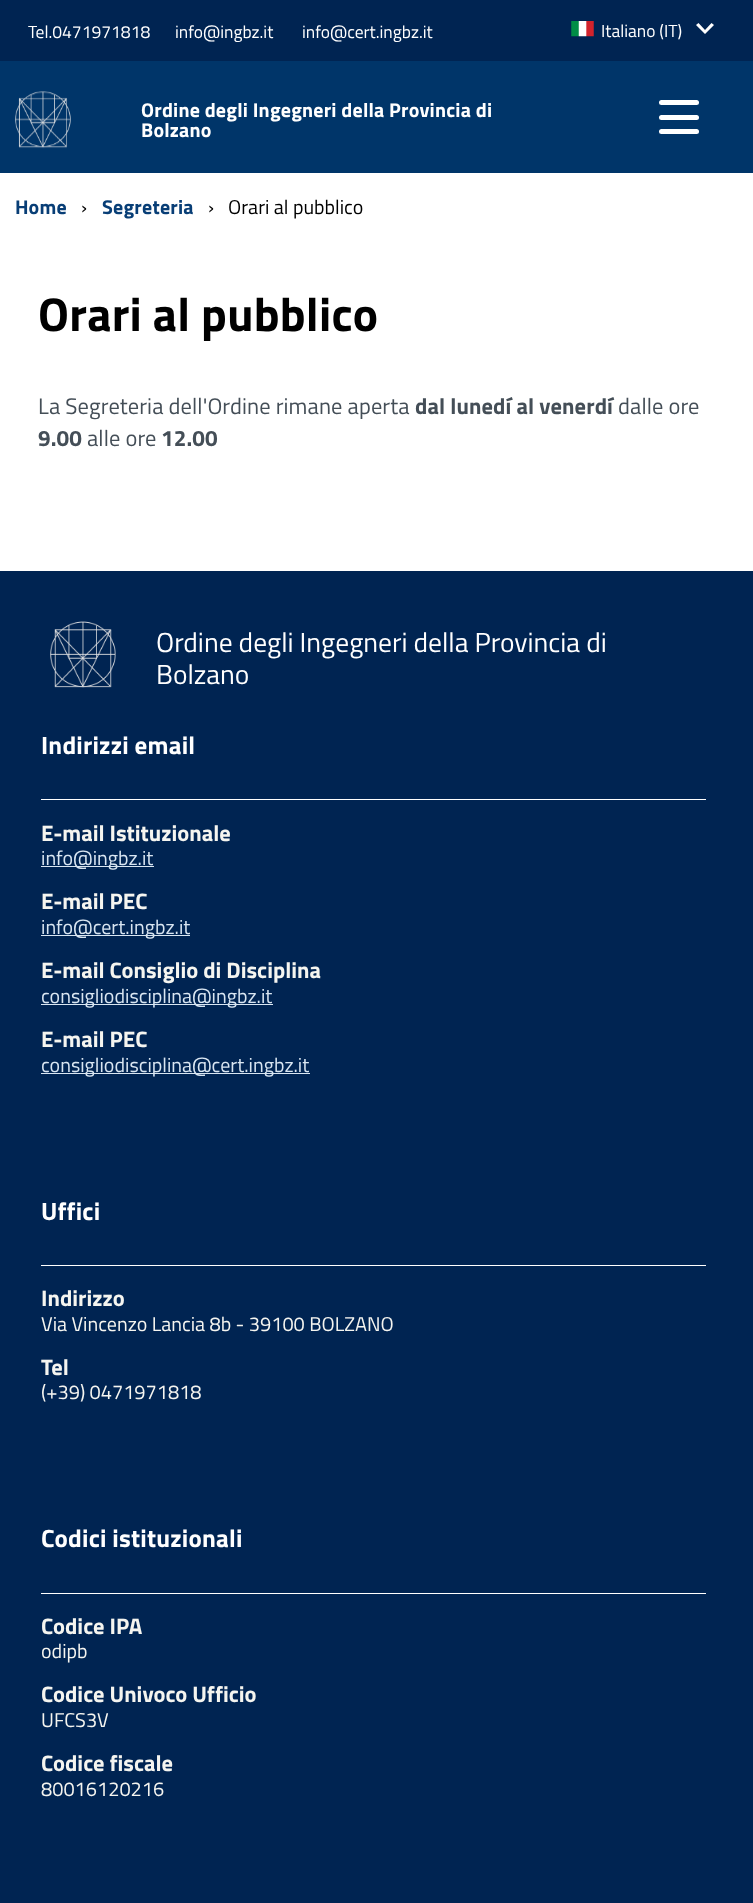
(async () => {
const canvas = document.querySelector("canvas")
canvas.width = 753
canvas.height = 1903
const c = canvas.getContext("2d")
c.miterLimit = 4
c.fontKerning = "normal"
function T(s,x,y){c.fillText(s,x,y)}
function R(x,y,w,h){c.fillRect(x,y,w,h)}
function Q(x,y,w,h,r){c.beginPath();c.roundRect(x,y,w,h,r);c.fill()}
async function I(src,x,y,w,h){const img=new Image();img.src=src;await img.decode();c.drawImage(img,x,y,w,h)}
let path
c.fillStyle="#fff"
R(0,0,753,1903)
c.fillStyle="#002452"
R(0,0,753,61)
c.font="17.5px Titillium Web"
c.fillStyle="#fff"
T("Tel.0471971818",28,38)
T("info@ingbz.it",175,38)
T("info@cert.ingbz.it",302,38)
await I("1.png",571,21,23,16)
T("Italiano (IT)",601,37)
path = new Path2D("M698.5 23l-2.5 2l9 9l9-9l-2.5-2l-6.5 7z")
c.fill(path)
c.fillStyle="#003569"
R(0,61,753,112)
await I("2.png",15,91,56,58)
c.letterSpacing="0.2px"
c.font="bold 20px Titillium Web"
c.fillStyle="#fff"
T("Ordine degli Ingegneri della Provincia di",141,117)
T("Bolzano",141,137)
Q(659,115,40,5,2.5)
Q(659,100,40,5,2.5)
Q(659,129,40,5,2.5)
c.fillStyle="#083e76"
T("Home",15,214)
c.letterSpacing="0px"
c.font="20px Titillium Web"
c.fillStyle="#000"
T("›",81,214)
c.letterSpacing="0.2px"
c.font="bold 20px Titillium Web"
c.fillStyle="#083e76"
T("Segreteria",102,214)
c.letterSpacing="0px"
c.font="20px Titillium Web"
c.fillStyle="#000"
T("›",208,214)
T("Orari al pubblico",228,214)
c.letterSpacing="0.25px"
c.font="bold 47.5px Titillium Web"
T("Orari al pubblico",38,331)
c.letterSpacing="0.1px"
c.font="22.5px Titillium Web"
c.fillStyle="#444e57"
T("La Segreteria dell'Ordine rimane aperta",38,414)
c.font="bold 22.5px Titillium Web"
T("dal lunedí al venerdí",415,414)
c.font="22.5px Titillium Web"
T("dalle ore",618,414)
c.font="bold 22.5px Titillium Web"
T("9.00",38,446)
c.font="22.5px Titillium Web"
T("alle ore",87,446)
c.font="bold 22.5px Titillium Web"
T("12.00",161,446)
c.fillStyle="#002452"
R(0,571,753,1332)
await I("3.png",50,621,66,67)
c.letterSpacing="0px"
c.font="27.5px Titillium Web"
c.fillStyle="#fff"
T("Ordine degli Ingegneri della Provincia di",156,652)
T("Bolzano",156,684)
c.letterSpacing="0.2px"
c.font="bold 25px Titillium Web"
T("Indirizzi email",41,754)
R(41,799,665,1)
c.letterSpacing="0px"
c.font="bold 22.5px Titillium Web"
c.fillStyle="#f5f5f0"
T("E-mail Istituzionale",41,841)
c.fillStyle="#d9e6f2"
R(41,866,113,1)
c.font="20px Titillium Web"
T("info@ingbz.it",41,865)
c.font="bold 22.5px Titillium Web"
c.fillStyle="#f5f5f0"
T("E-mail PEC",41,909)
c.fillStyle="#d9e6f2"
R(41,935,149,1)
c.font="20px Titillium Web"
T("info@cert.ingbz.it",41,934)
c.font="bold 22.5px Titillium Web"
c.fillStyle="#f5f5f0"
T("E-mail Consiglio di Disciplina",41,978)
c.fillStyle="#d9e6f2"
R(41,1004,232,1)
c.font="20px Titillium Web"
T("consigliodisciplina@ingbz.it",41,1003)
c.font="bold 22.5px Titillium Web"
c.fillStyle="#f5f5f0"
T("E-mail PEC",41,1047)
c.fillStyle="#d9e6f2"
R(41,1073,269,1)
c.font="20px Titillium Web"
T("consigliodisciplina@cert.ingbz.it",41,1072)
c.letterSpacing="0.2px"
c.font="bold 25px Titillium Web"
c.fillStyle="#fff"
T("Uffici",41,1220)
R(41,1265,665,1)
c.letterSpacing="0px"
c.font="bold 22.5px Titillium Web"
c.fillStyle="#f5f5f0"
T("Indirizzo",41,1306)
c.font="20px Titillium Web"
T("Via Vincenzo Lancia 8b - 39100 BOLZANO",41,1331)
c.font="bold 22.5px Titillium Web"
T("Tel",41,1375)
c.font="20px Titillium Web"
T("(+39) 0471971818",41,1399)
c.letterSpacing="0.2px"
c.font="bold 25px Titillium Web"
c.fillStyle="#fff"
T("Codici istituzionali",41,1547)
R(41,1593,665,1)
c.letterSpacing="0px"
c.font="bold 22.5px Titillium Web"
c.fillStyle="#f5f5f0"
T("Codice IPA",41,1634)
c.font="20px Titillium Web"
T("odipb",41,1658)
c.font="bold 22.5px Titillium Web"
T("Codice Univoco Ufficio",41,1702)
c.font="20px Titillium Web"
T("UFCS3V",41,1727)
c.font="bold 22.5px Titillium Web"
T("Codice fiscale",41,1771)
c.font="20px Titillium Web"
T("80016120216",41,1796)
})()
